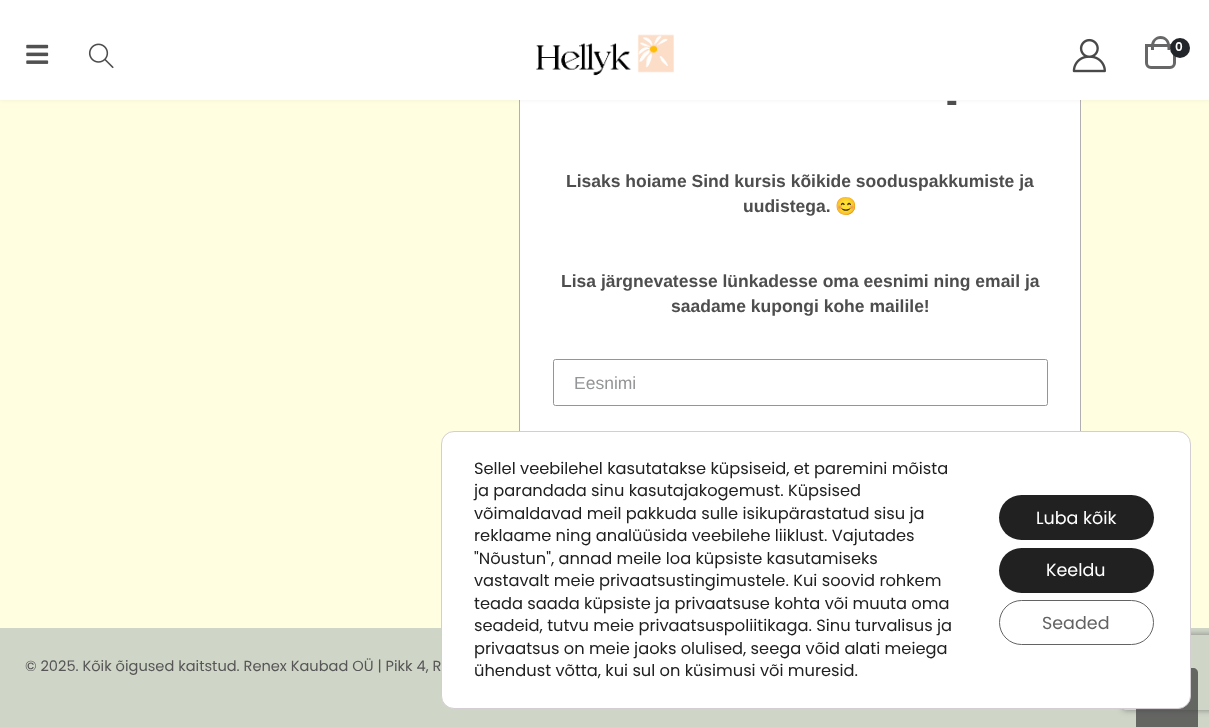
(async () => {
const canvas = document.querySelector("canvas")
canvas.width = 1209
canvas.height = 727
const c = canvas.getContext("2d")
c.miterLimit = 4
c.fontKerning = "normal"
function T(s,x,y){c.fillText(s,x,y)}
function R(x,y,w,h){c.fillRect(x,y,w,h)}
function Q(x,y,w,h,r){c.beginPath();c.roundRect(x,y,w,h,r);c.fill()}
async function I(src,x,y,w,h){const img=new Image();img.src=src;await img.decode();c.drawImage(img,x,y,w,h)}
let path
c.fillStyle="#fffee0"
R(0,0,1209,727)
c.fillStyle="#fff"
R(520,100,560,331)
c.strokeStyle="#b1afaf"
c.strokeRect(519.5,-.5,561,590)
c.fillStyle="#0000000f"
c.filter="blur(2px)"
c.beginPath()
c.rect(0,0,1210,100)
c.fill()
c.filter="none"
c.fillStyle="#fff"
R(0,0,1209,100)
await I("1.png",26,44,23,20)
await I("2.png",88,43,26,26)
await I("3.png",536,34,138,42)
await I("4.png",1072,38,34,35)
c.beginPath()
c.roundRect(1146.5,45.5,28,22,[0,0,4.5,4.5])
c.strokeStyle="#676767"
c.lineWidth=3
c.stroke()
c.fillStyle="#676767"
path = new Path2D("M1160.5 36c5.5 0 9.5 4.5 9.5 9.5v4.5h-19v-4.5c0-5 4.5-9.5 9.5-9.5zm0 3c7 0 7 6 7 11h-13.5c0-5-.5-11 6.5-11z")
c.fill(path,"evenodd")
c.fillStyle="#222529"
c.beginPath()
c.arc(1180,48,10,0,7)
c.fill()
c.font="600 12px Poppins"
c.fillStyle="#fff"
T("0",1175,51)
c.font="bold 35px Liberation Sans"
c.fillStyle="#4e4e4e"
T("-",946,112)
c.font="bold 17.5px Liberation Sans"
T("Lisaks hoiame Sind kursis kõikide sooduspakkumiste ja",566,187)
T("uudistega.",743,212)
c.font="bold 17.5px Noto Color Emoji"
T("😊",835,212)
c.font="bold 17.5px Liberation Sans"
T("Lisa järgnevatesse lünkadesse oma eesnimi ning email ja",561,287)
T("saadame kupongi kohe mailile!",671,312)
c.beginPath()
c.roundRect(553.5,359.5,494,46,2)
c.strokeStyle="#949596"
c.lineWidth=1
c.stroke()
c.font="17.5px Liberation Sans"
c.fillStyle="#949596"
T("Eesnimi",574,389)
c.fillStyle="#d0d6c7"
R(0,628,1209,99)
c.font="14.6px Poppins"
c.fillStyle="#565656"
T("© 2025. Kõik õigused kaitstud. Renex Kaubad OÜ | Pikk 4, R",25,671)
c.save()
path = new Path2D("M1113 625h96v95h-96zm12.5 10h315c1.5 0 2.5 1 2.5 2.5v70c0 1.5-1 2.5-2.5 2.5h-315c-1.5 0-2.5-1-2.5-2.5v-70c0-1.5 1-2.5 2.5-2.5z")
c.clip(path,"evenodd")
c.fillStyle="#808080"
c.filter="blur(3px)"
c.beginPath()
c.roundRect(1123,635,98,75,2.5)
c.fill()
c.filter="none"
c.restore()
c.fillStyle="#404040bf"
path = new Path2D("M1141 668h52c3 0 5 2 5 5v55h-62v-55c0-3 2-5 5-5z")
c.fill(path)
c.fillStyle="#fff"
c.beginPath()
c.roundRect(441.5,431.5,749,277,12.5)
c.fill()
c.strokeStyle="#d3ced2"
c.stroke()
c.font="16.25px Poppins"
c.fillStyle="#202020"
T("Sellel veebilehel kasutatakse küpsiseid, et paremini mõista",474,474)
T("ja parandada sinu kasutajakogemust. Küpsised",474,496)
T("võimaldavad meil pakkuda sulle isikupärastatud sisu ja",474,519)
T("reklaame ning analüüsida veebilehe liiklust. Vajutades",474,541)
T("\"Nõustun\", annad meile loa küpsiste kasutamiseks",474,564)
T("vastavalt meie privaatsustingimustele. Kui soovid rohkem",474,586)
T("teada saada küpsiste ja privaatsuse kohta või muuta oma",474,609)
T("seadeid, tutvu meie privaatsuspoliitikaga. Sinu turvalisus ja",474,631)
T("privaatsus on meie jaoks olulised, seega võid alati meiega",474,654)
T("ühendust võtta, kui sul on küsimusi või muresid.",474,676)
c.fillStyle="#212121"
Q(999,495,155,45,22.5)
c.font="17.5px Poppins"
c.fillStyle="#fff"
T("Luba kõik",1036,524)
c.fillStyle="#212121"
Q(999,548,155,45,22.5)
c.fillStyle="#fff"
T("Keeldu",1046,576)
c.beginPath()
c.roundRect(999.5,600.5,154,44,22)
c.strokeStyle="#636363"
c.stroke()
c.fillStyle="#636363"
T("Seaded",1042,629)
})()
